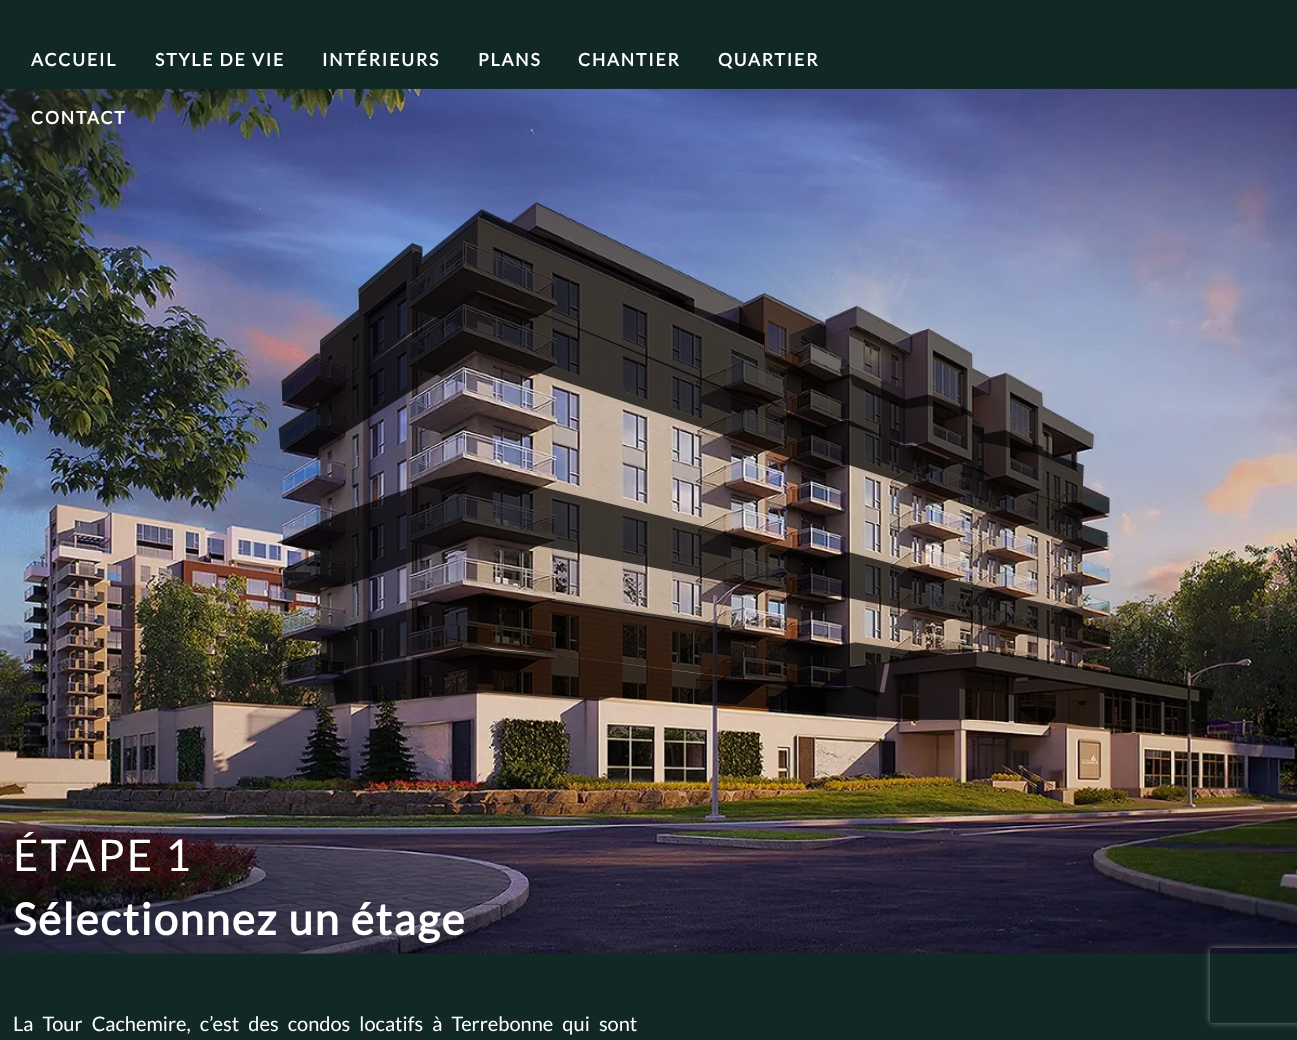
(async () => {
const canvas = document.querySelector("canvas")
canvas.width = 1297
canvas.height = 1040
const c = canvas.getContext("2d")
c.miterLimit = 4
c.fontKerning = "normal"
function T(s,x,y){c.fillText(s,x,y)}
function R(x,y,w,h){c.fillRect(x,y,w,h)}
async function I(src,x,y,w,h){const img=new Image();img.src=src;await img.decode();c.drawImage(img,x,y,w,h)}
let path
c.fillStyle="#112825"
R(0,0,1297,1040)
c.letterSpacing="1.9px"
c.font="bold 17.5px Lato"
c.fillStyle="#fff"
T("ACCUEIL",31,66)
T("STYLE DE VIE",155,66)
T("INTÉRIEURS",322,66)
T("PLANS",478,66)
T("CHANTIER",578,66)
T("QUARTIER",718,66)
await I("1.png",0,88,1297,866)
T("CONTACT",31,124)
await I("2.png",277,202,937,533)
c.letterSpacing="2.25px"
c.font="43.75px Lato"
T("ÉTAPE 1",13,871)
c.letterSpacing="1.75px"
c.font="bold 43.75px Lato"
T("Sélectionnez un étage",13,935)
c.letterSpacing="0px"
c.wordSpacing="5.25px"
c.font="20px Lato"
T("La Tour Cachemire, c’est des condos locatifs à Terrebonne qui sont",13,1031)
c.save()
path = new Path2D("M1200 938h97v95h-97zm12.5 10h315c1.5 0 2.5 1 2.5 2.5v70c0 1.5-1 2.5-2.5 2.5h-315c-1.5 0-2.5-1-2.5-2.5v-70c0-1.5 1-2.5 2.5-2.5z")
c.clip(path,"evenodd")
c.fillStyle="#808080"
c.filter="blur(3px)"
c.beginPath()
c.roundRect(1210,948,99,75,2.5)
c.fill()
c.filter="none"
c.restore()
})()
